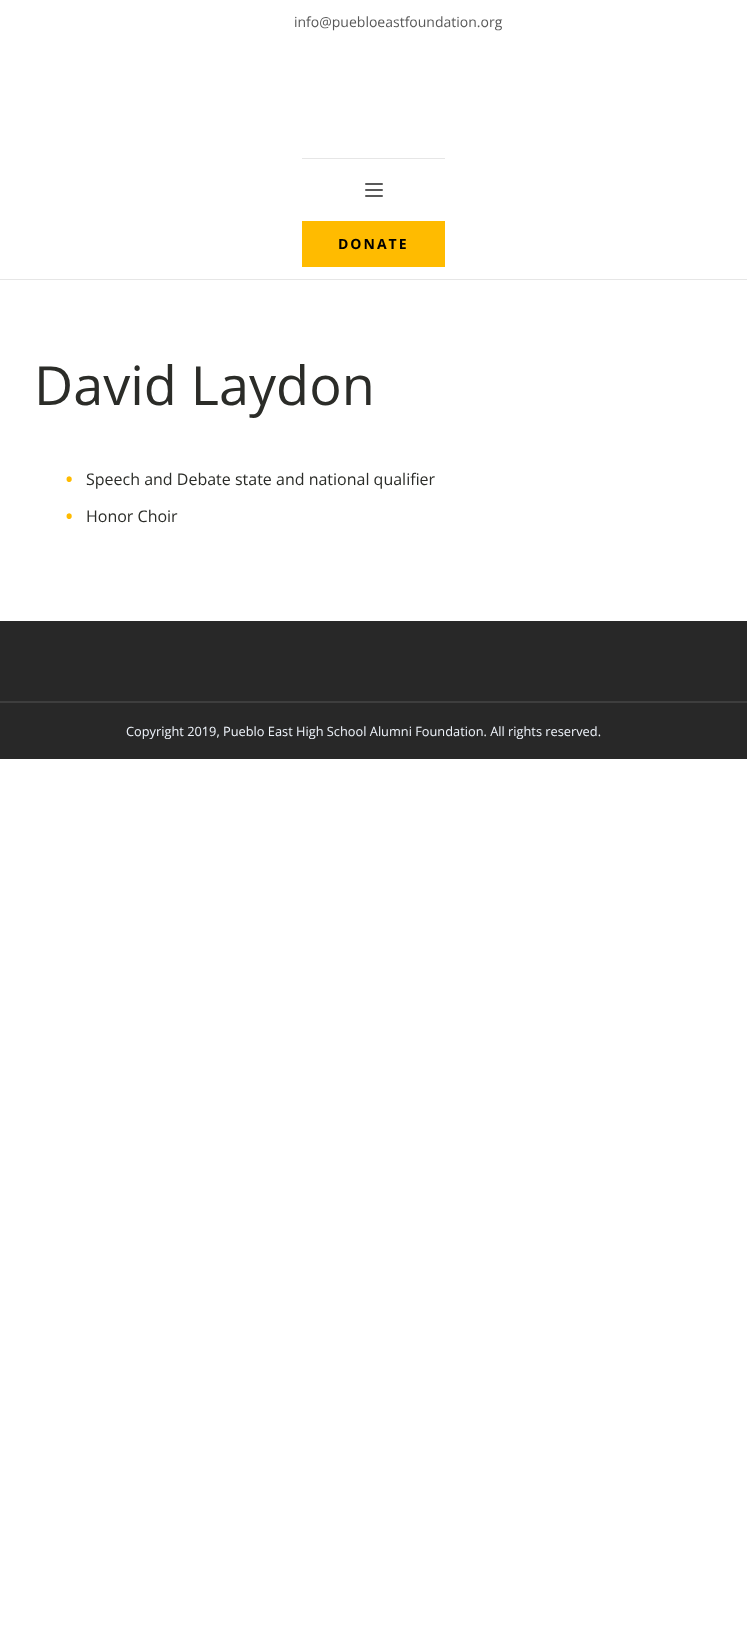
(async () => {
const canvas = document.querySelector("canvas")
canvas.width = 747
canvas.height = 1642
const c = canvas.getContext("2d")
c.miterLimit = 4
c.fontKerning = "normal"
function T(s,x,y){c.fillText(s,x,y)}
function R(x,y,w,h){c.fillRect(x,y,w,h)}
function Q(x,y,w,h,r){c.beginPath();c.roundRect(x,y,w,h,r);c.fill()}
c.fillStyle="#fff"
R(0,0,747,1642)
c.font="14px Open Sans"
c.fillStyle="#595959"
T("info@puebloeastfoundation.org",294,27)
c.fillStyle="#e6e6e6"
R(0,279,747,1)
R(302,158,143,1)
c.fillStyle="#595959"
Q(365,183,18,2,1)
Q(365,189,18,2,1)
Q(365,195,18,2,1)
c.fillStyle="#fb0"
R(302,221,143,46)
c.letterSpacing="2px"
c.font="bold 14px Open Sans"
c.fillStyle="#000"
T("DONATE",338,249)
c.letterSpacing="0px"
c.font="54px Open Sans"
c.fillStyle="#2b2c28"
T("David Laydon",34,405)
c.font="800 16px Open Sans"
c.fillStyle="#fb0"
T("•",66,485)
c.font="16px Open Sans"
c.fillStyle="#2b2c28"
T("Speech and Debate state and national qualifier",86,485)
c.font="800 16px Open Sans"
c.fillStyle="#fb0"
T("•",66,522)
c.font="16px Open Sans"
c.fillStyle="#2b2c28"
T("Honor Choir",86,522)
c.fillStyle="#282828"
R(0,621,747,138)
c.fillStyle="#3e3e3e"
R(0,701,747,2)
c.font="12.8px Open Sans"
c.fillStyle="#eff4fb"
T("Copyright 2019, Pueblo East High School Alumni Foundation. All rights reserved.",126,736)
})()
